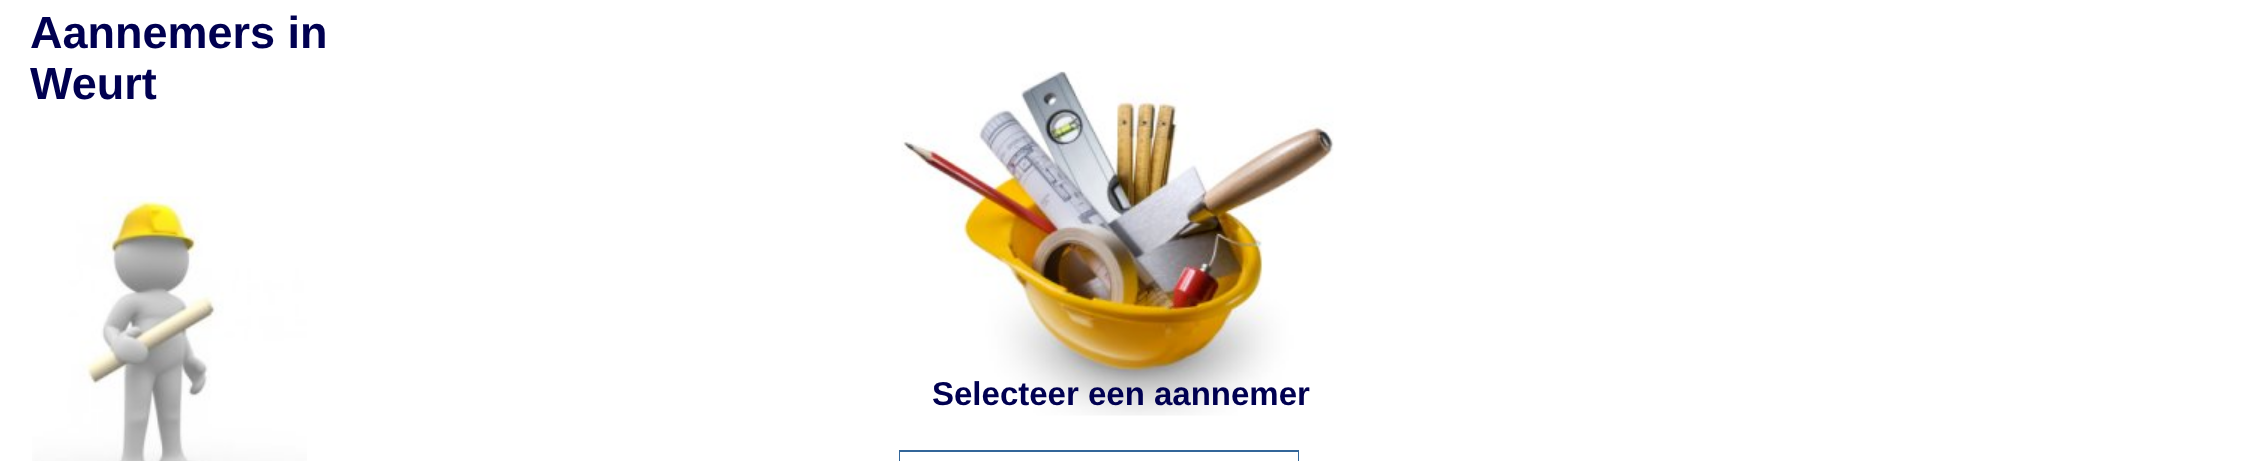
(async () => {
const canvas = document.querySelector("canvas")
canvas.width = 2263
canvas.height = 461
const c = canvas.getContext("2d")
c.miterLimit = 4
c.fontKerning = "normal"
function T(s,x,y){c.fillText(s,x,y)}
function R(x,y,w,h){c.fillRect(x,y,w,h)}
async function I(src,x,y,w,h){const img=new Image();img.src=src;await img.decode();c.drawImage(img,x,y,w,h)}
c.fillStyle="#fff"
R(0,0,2263,461)
c.font="bold 45px Liberation Sans"
c.fillStyle="#000051"
T("Aannemers in",30,48)
T("Weurt",30,99)
await I("1.png",32,196,275,265)
await I("2.png",901,71,433,345)
c.font="bold 33px Liberation Sans"
T("Selecteer een aannemer",932,405)
c.fillStyle="#369"
R(899,450,400,11)
c.fillStyle="#fff"
R(900,452,398,9)
})()
